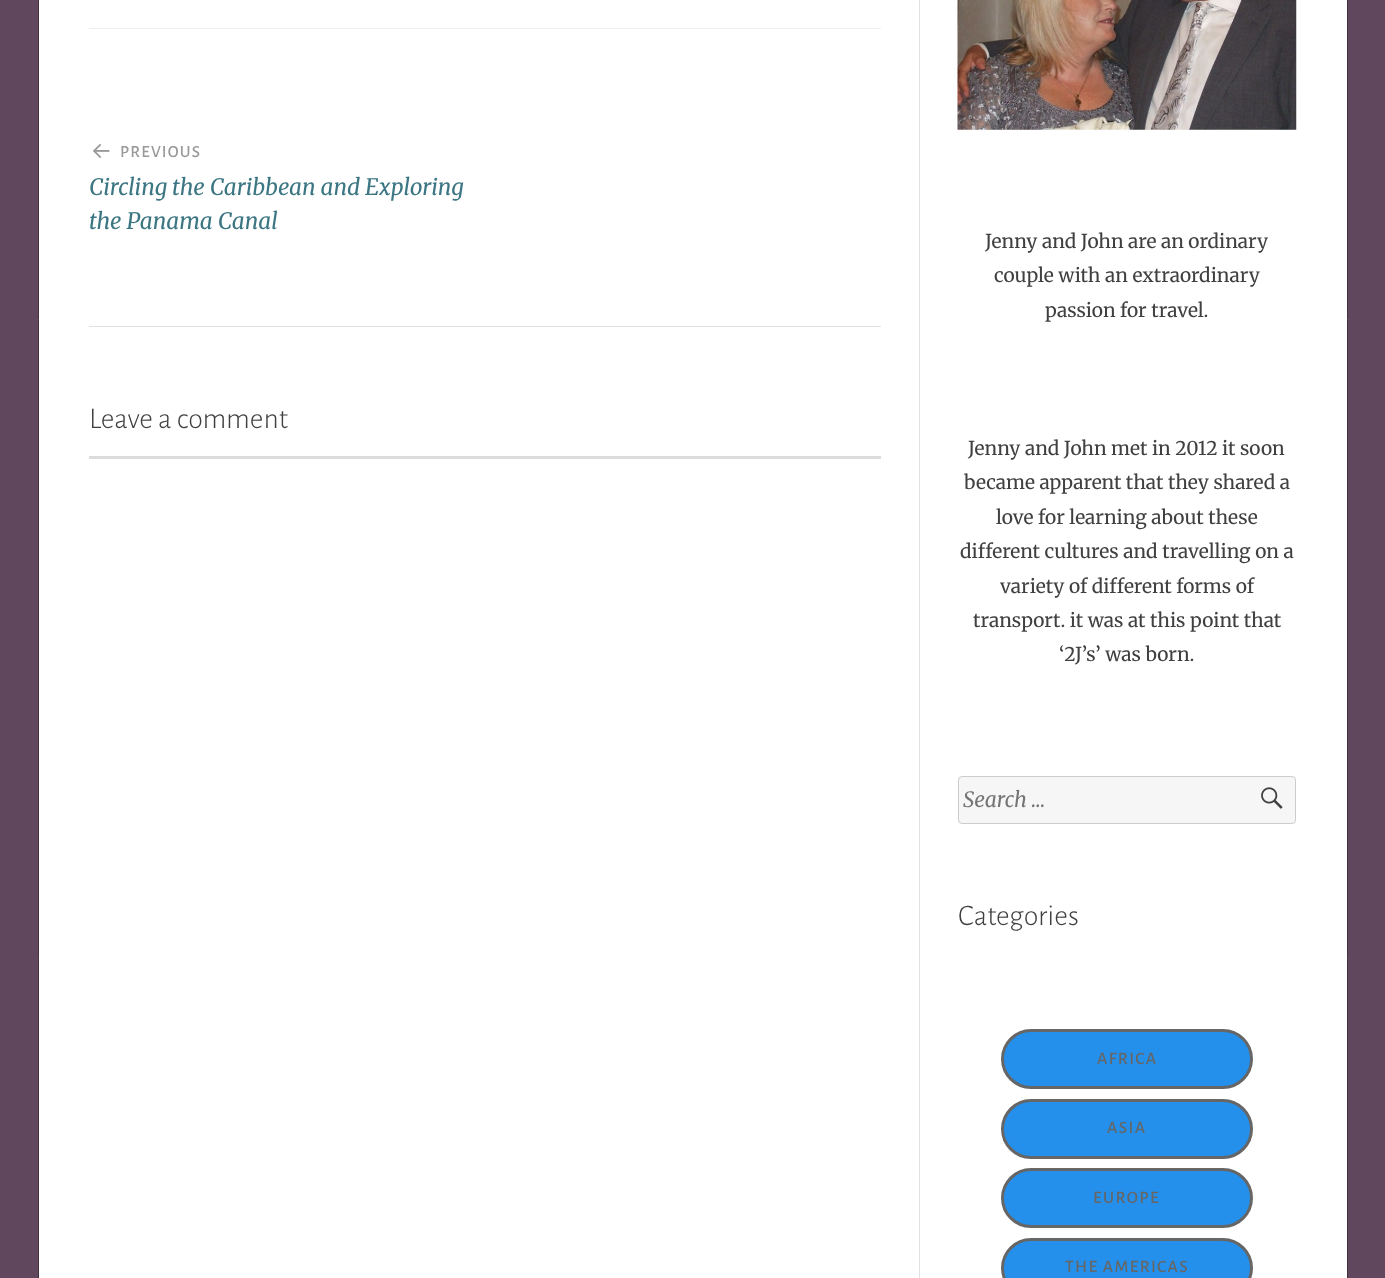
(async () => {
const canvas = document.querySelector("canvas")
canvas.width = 1385
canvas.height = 1278
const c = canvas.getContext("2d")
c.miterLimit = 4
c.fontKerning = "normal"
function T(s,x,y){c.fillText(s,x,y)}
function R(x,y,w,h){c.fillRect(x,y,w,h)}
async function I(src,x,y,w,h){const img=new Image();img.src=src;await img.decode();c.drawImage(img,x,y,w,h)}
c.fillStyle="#61475d"
R(0,0,1385,1278)
c.fillStyle="#fff"
c.beginPath()
c.rect(38.5,-.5,1309,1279)
c.fill()
c.strokeStyle="#433140"
c.stroke()
c.fillStyle="#efefef"
R(89,28,792,1)
await I("1.png",93,144,17,14)
c.letterSpacing="1.25px"
c.font="500 17px Alegreya Sans"
c.fillStyle="#999"
T("PREVIOUS",120,157)
c.letterSpacing="0px"
c.font="italic 22.5px Merriweather"
c.fillStyle="#3c7683"
T("Circling the Caribbean and Exploring",89,195)
T("the Panama Canal",89,229)
c.fillStyle="#e1e1e1"
R(89,326,792,1)
c.font="300 30px Alegreya Sans"
c.fillStyle="#404040"
T("Leave a comment",89,428)
c.fillStyle="#dcdcde"
R(89,456,792,3)
c.fillStyle="#e1e1e1"
R(919,0,1,1278)
await I("2.png",957,0,340,130)
c.font="19.1px Merriweather"
c.fillStyle="#404040"
T("Jenny and John are an ordinary",985,248)
T("couple with an extraordinary",994,282)
T("passion for travel.",1045,317)
T("Jenny and John met in 2012 it soon",968,455)
T("became apparent that they shared a",964,489)
T("love for learning about these",996,524)
T("different cultures and travelling on a",960,558)
T("variety of different forms of",1000,593)
T("transport. it was at this point that",973,627)
T("‘2J’s’ was born.",1059,661)
c.fillStyle="#f6f6f6"
c.beginPath()
c.roundRect(958.5,776.5,337,47,3.5)
c.fill()
c.strokeStyle="#ccc"
c.stroke()
c.font="italic 21px Merriweather"
c.fillStyle="#757575"
T("Search …",963,807)
await I("3.png",1261,787,22,22)
c.font="300 30px Alegreya Sans"
c.fillStyle="#404040"
T("Categories",958,925)
c.fillStyle="#2590ec"
c.beginPath()
c.roundRect(1002.5,1030.5,249,57,28.5)
c.fill()
c.strokeStyle="#666"
c.lineWidth=3
c.stroke()
c.letterSpacing="1.4px"
c.font="500 17.5px Alegreya Sans"
c.fillStyle="#666"
T("AFRICA",1097,1064)
c.fillStyle="#2590ec"
c.beginPath()
c.roundRect(1002.5,1100.5,249,57,28.5)
c.fill()
c.stroke()
c.fillStyle="#666"
T("ASIA",1107,1133)
c.fillStyle="#2590ec"
c.beginPath()
c.roundRect(1002.5,1169.5,249,57,28.5)
c.fill()
c.stroke()
c.fillStyle="#666"
T("EUROPE",1093,1203)
c.fillStyle="#2590ec"
c.beginPath()
c.roundRect(1002.5,1239.5,249,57,28.5)
c.fill()
c.stroke()
c.fillStyle="#666"
T("THE AMERICAS",1065,1272)
})()
